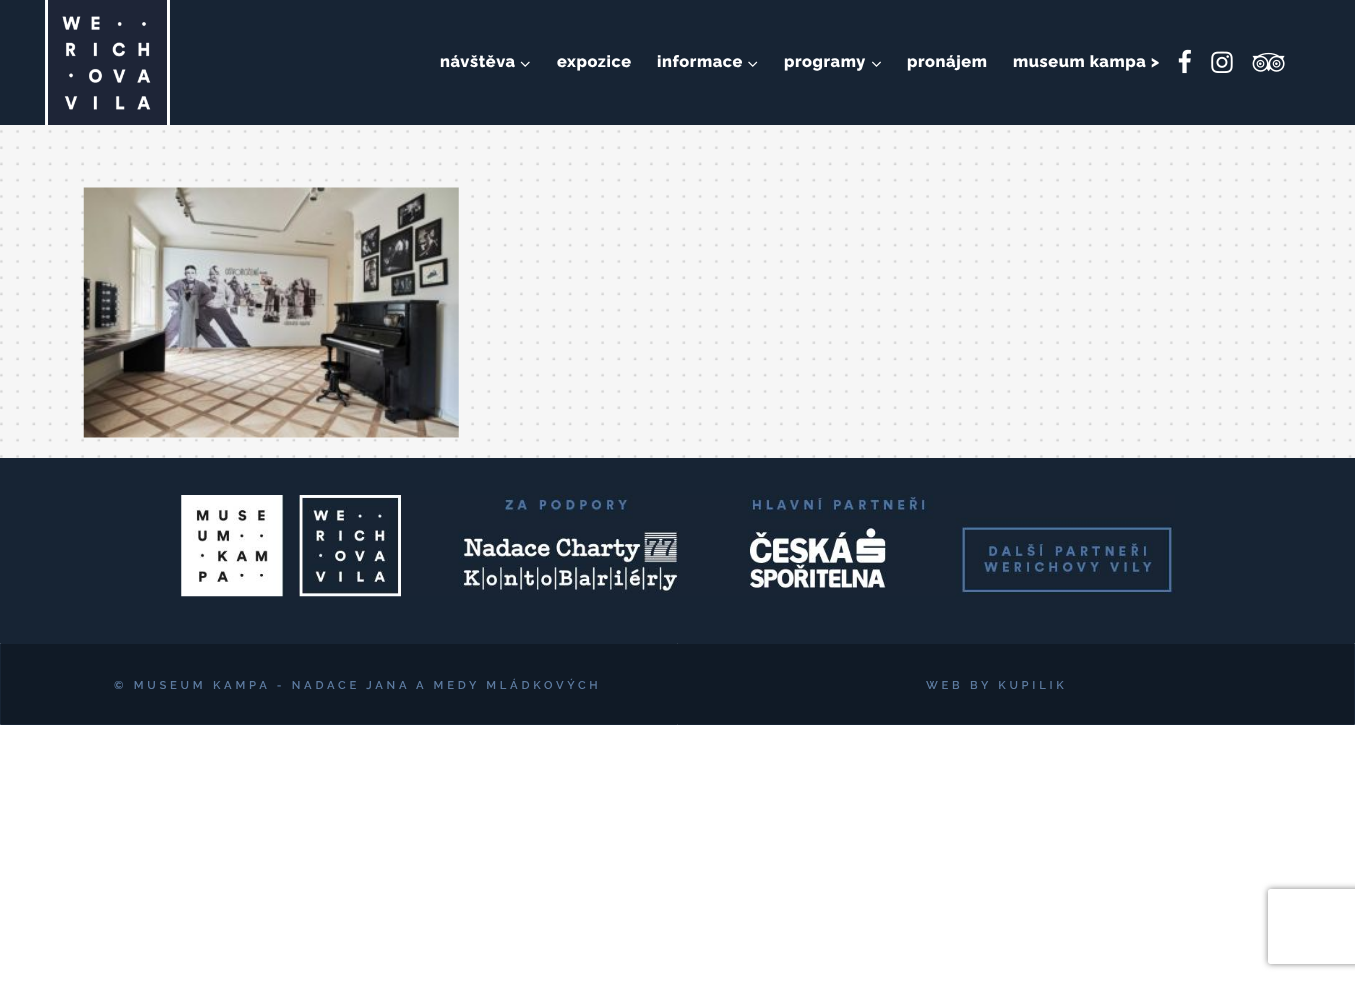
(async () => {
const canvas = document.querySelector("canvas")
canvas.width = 1355
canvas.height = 981
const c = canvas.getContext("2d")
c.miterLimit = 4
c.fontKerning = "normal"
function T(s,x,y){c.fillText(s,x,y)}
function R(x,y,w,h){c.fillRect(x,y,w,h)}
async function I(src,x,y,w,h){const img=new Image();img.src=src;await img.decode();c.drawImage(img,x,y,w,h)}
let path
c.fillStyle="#fff"
R(0,0,1355,981)
c.fillStyle="#172434"
R(0,0,1355,125)
await I("1.png",45,0,125,125)
c.letterSpacing="0.6px"
c.font="800 16.25px Raleway"
c.fillStyle="#fff"
T("návštěva",440,67)
await I("2.png",520,61,10,6)
T("expozice",557,67)
T("informace",657,67)
await I("3.png",748,61,10,6)
T("programy",784,67)
await I("4.png",872,61,9,6)
T("pronájem",907,67)
T("museum kampa >",1013,67)
await I("5.png",1178,49,13,25)
await I("6.png",1211,51,22,22)
await I("7.png",1252,52,33,20)
await I("8.png",0,125,1355,333)
await I("9.png",83,187,376,251)
c.fillStyle="#172434"
R(0,458,1355,185)
await I("10.png",181,495,994,102)
c.fillStyle="#101a26"
c.beginPath()
c.rect(.5,643.5,1354,81)
c.fill()
c.strokeStyle="#172434"
c.stroke()
c.letterSpacing="3.75px"
c.font="600 11.25px Raleway"
c.fillStyle="#5d7ba0"
T("© MUSEUM KAMPA - NADACE JANA A MEDY MLÁDKOVÝCH",114,689)
T("WEB BY KUPILIK",926,689)
c.save()
path = new Path2D("M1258 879h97v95h-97zm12.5 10h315c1.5 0 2.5 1 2.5 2.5v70c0 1.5-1 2.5-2.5 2.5h-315c-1.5 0-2.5-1-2.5-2.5v-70c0-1.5 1-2.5 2.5-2.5z")
c.clip(path,"evenodd")
c.fillStyle="#808080"
c.filter="blur(3px)"
c.beginPath()
c.roundRect(1268,889,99,75,2.5)
c.fill()
c.filter="none"
c.restore()
})()
